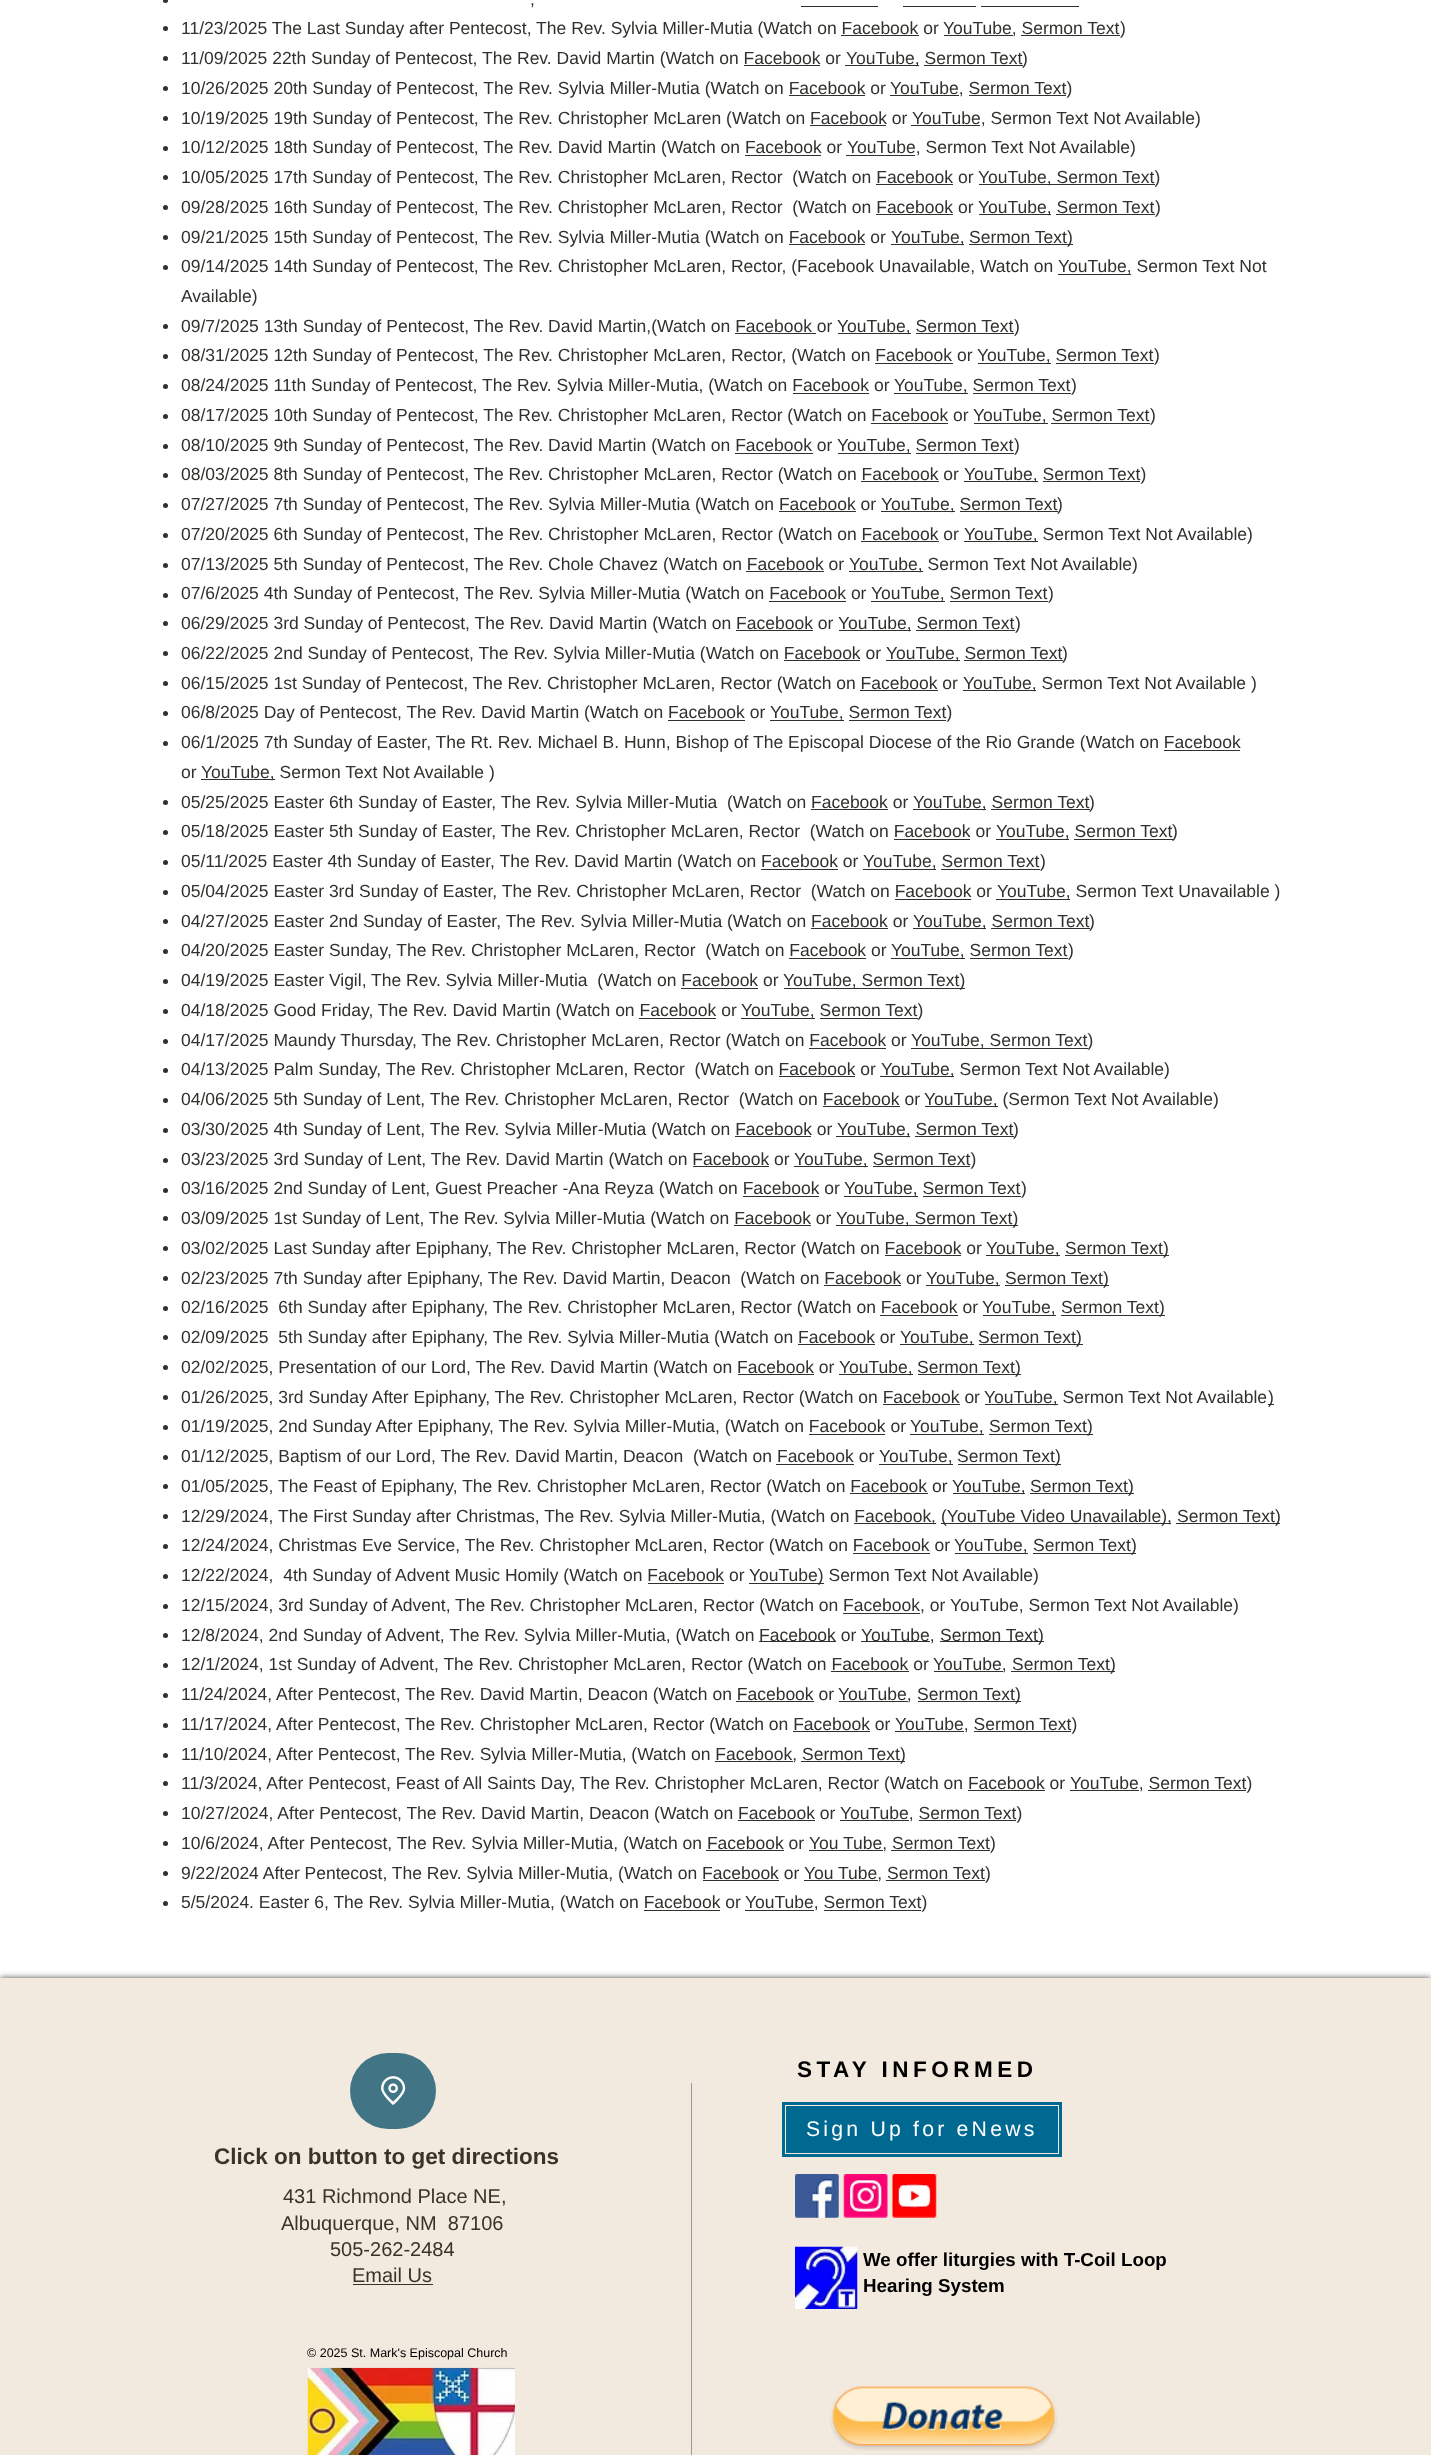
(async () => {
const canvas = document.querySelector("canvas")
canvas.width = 1431
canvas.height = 2455
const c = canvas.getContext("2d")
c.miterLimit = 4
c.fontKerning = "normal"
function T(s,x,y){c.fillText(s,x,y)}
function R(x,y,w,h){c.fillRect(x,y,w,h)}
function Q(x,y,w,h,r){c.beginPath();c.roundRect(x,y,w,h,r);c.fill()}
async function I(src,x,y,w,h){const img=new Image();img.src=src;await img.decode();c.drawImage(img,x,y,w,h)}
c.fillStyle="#fff"
R(0,0,1431,2455)
c.fillStyle="#31302c"
c.beginPath()
c.arc(165.5,.5,2.5,0,7)
c.fill()
c.font="17.5px Liberation Sans"
T(",",530,5)
R(801,6,77,1)
R(903,6,73,1)
R(981,6,98,1)
c.beginPath()
c.arc(165.5,28.5,2.5,0,7)
c.fill()
T("11/23/2025 The Last Sunday after Pentecost, The Rev. Sylvia Miller-Mutia (Watch on Facebook or",181,34)
R(944,35,69,1)
T("YouTube, Sermon Text",943,34)
R(1021,35,99,1)
T(")",1120,34)
R(841,35,78,1)
c.beginPath()
c.arc(165.5,58.5,2.5,0,7)
c.fill()
T("11/09/2025 22th Sunday of Pentecost, The Rev. David Martin (Watch on Facebook or",181,64)
R(845,65,74,1)
T("YouTube, Sermon Text",846,64)
R(924,65,99,1)
T(")",1022,64)
R(744,65,76,1)
c.beginPath()
c.arc(165.5,88.5,2.5,0,7)
c.fill()
T("10/26/2025 20th Sunday of Pentecost, The Rev. Sylvia Miller-Mutia (Watch on Facebook or",181,94)
R(890,95,69,1)
T("YouTube, Sermon Text)",890,94)
R(789,95,76,1)
R(969,95,97,1)
c.beginPath()
c.arc(165.5,118.5,2.5,0,7)
c.fill()
T("10/19/2025 19th Sunday of Pentecost, The Rev. Christopher McLaren (Watch on Facebook or",181,124)
R(911,125,69,1)
T("YouTube, Sermon Text Not Available)",912,124)
R(810,125,76,1)
c.beginPath()
c.arc(165.5,148.5,2.5,0,7)
c.fill()
T("10/12/2025 18th Sunday of Pentecost, The Rev. David Martin (Watch on Facebook or",181,153)
R(846,155,69,1)
T("YouTube, Sermon Text Not Available)",847,153)
R(745,155,76,1)
c.beginPath()
c.arc(165.5,177.5,2.5,0,7)
c.fill()
T("10/05/2025 17th Sunday of Pentecost, The Rev. Christopher McLaren, Rector  (Watch on Facebook or",181,183)
R(979,184,176,1)
T("YouTube, Sermon Text)",978,183)
R(876,184,77,1)
c.beginPath()
c.arc(165.5,207.5,2.5,0,7)
c.fill()
T("09/28/2025 16th Sunday of Pentecost, The Rev. Christopher McLaren, Rector  (Watch on Facebook or",181,213)
R(979,214,72,1)
T("YouTube, Sermon Text",978,213)
R(1056,214,99,1)
T(")",1155,213)
R(876,214,77,1)
c.beginPath()
c.arc(165.5,237.5,2.5,0,7)
c.fill()
T("09/21/2025 15th Sunday of Pentecost, The Rev. Sylvia Miller-Mutia (Watch on Facebook or",181,243)
R(891,244,73,1)
T("YouTube,",891,243)
R(969,244,104,1)
T("Sermon Text)",969,243)
R(789,244,76,1)
c.beginPath()
c.arc(165.5,267.5,2.5,0,7)
c.fill()
T("09/14/2025 14th Sunday of Pentecost, The Rev. Christopher McLaren, Rector, (Facebook Unavailable, Watch on",181,272)
R(1058,274,73,1)
T("YouTube, Sermon Text Not",1058,272)
T("Available)",181,302)
c.beginPath()
c.arc(165.5,326.5,2.5,0,7)
c.fill()
T("09/7/2025 13th Sunday of Pentecost, The Rev. David Martin,(Watch on Facebook or",181,332)
R(838,333,73,1)
T("YouTube, Sermon Text",837,332)
R(916,333,98,1)
T(")",1014,332)
R(735,333,81,1)
c.beginPath()
c.arc(165.5,356.5,2.5,0,7)
c.fill()
T("08/31/2025 12th Sunday of Pentecost, The Rev. Christopher McLaren, Rector, (Watch on Facebook or",181,361)
R(978,363,73,1)
T("YouTube, Sermon Text",977,361)
R(1056,363,98,1)
T(")",1154,361)
R(875,363,78,1)
c.beginPath()
c.arc(165.5,386.5,2.5,0,7)
c.fill()
T("08/24/2025 11th Sunday of Pentecost, The Rev. Sylvia Miller-Mutia, (Watch on Facebook or",181,391)
R(894,393,74,1)
T("YouTube, Sermon Text",894,391)
R(973,393,98,1)
T(")",1071,391)
R(793,393,76,1)
c.beginPath()
c.arc(165.5,416.5,2.5,0,7)
c.fill()
T("08/17/2025 10th Sunday of Pentecost, The Rev. Christopher McLaren, Rector (Watch on Facebook or",181,421)
R(974,423,74,1)
T("YouTube, Sermon Text",973,421)
R(1051,423,99,1)
T(")",1150,421)
R(871,423,77,1)
c.beginPath()
c.arc(165.5,446.5,2.5,0,7)
c.fill()
T("08/10/2025 9th Sunday of Pentecost, The Rev. David Martin (Watch on Facebook or",181,451)
R(838,453,73,1)
T("YouTube, Sermon Text",837,451)
R(916,453,98,1)
T(")",1014,451)
R(735,453,78,1)
c.beginPath()
c.arc(165.5,475.5,2.5,0,7)
c.fill()
T("08/03/2025 8th Sunday of Pentecost, The Rev. Christopher McLaren, Rector (Watch on Facebook or",181,480)
R(964,481,74,1)
T("YouTube, Sermon Text)",964,480)
R(861,481,78,1)
R(1043,481,97,1)
c.beginPath()
c.arc(165.5,505.5,2.5,0,7)
c.fill()
T("07/27/2025 7th Sunday of Pentecost, The Rev. Sylvia Miller-Mutia (Watch on Facebook or",181,510)
R(881,511,74,1)
T("YouTube, Sermon Text",881,510)
R(960,511,98,1)
T(")",1057,510)
R(779,511,77,1)
c.beginPath()
c.arc(165.5,535.5,2.5,0,7)
c.fill()
T("07/20/2025 6th Sunday of Pentecost, The Rev. Christopher McLaren, Rector (Watch on Facebook or",181,540)
R(964,541,74,1)
T("YouTube, Sermon Text Not Available)",964,540)
R(861,541,78,1)
c.beginPath()
c.arc(165.5,565.5,2.5,0,7)
c.fill()
T("07/13/2025 5th Sunday of Pentecost, The Rev. Chole Chavez (Watch on Facebook or",181,570)
R(849,571,74,1)
T("YouTube, Sermon Text Not Available)",849,570)
R(746,571,78,1)
c.beginPath()
c.arc(165.5,595.5,2.5,0,7)
c.fill()
T("07/6/2025 4th Sunday of Pentecost, The Rev. Sylvia Miller-Mutia (Watch on Facebook or",181,599)
R(871,601,74,1)
T("YouTube, Sermon Text",871,599)
R(950,601,98,1)
T(")",1048,599)
R(769,601,77,1)
c.beginPath()
c.arc(165.5,623.5,2.5,0,7)
c.fill()
T("06/29/2025 3rd Sunday of Pentecost, The Rev. David Martin (Watch on Facebook or",181,629)
R(839,630,72,1)
T("YouTube, Sermon Text",838,629)
R(916,630,99,1)
T(")",1015,629)
R(736,630,77,1)
c.beginPath()
c.arc(165.5,653.5,2.5,0,7)
c.fill()
T("06/22/2025 2nd Sunday of Pentecost, The Rev. Sylvia Miller-Mutia (Watch on Facebook or",181,659)
R(886,660,74,1)
T("YouTube, Sermon Text",886,659)
R(964,660,99,1)
T(")",1062,659)
R(784,660,76,1)
c.beginPath()
c.arc(165.5,683.5,2.5,0,7)
c.fill()
T("06/15/2025 1st Sunday of Pentecost, The Rev. Christopher McLaren, Rector (Watch on Facebook or",181,689)
R(963,690,73,1)
T("YouTube, Sermon Text Not Available )",963,689)
R(860,690,78,1)
c.beginPath()
c.arc(165.5,713.5,2.5,0,7)
c.fill()
T("06/8/2025 Day of Pentecost, The Rev. David Martin (Watch on Facebook or",181,718)
R(770,720,74,1)
T("YouTube, Sermon Text)",770,718)
R(668,720,77,1)
R(849,720,97,1)
c.beginPath()
c.arc(165.5,743.5,2.5,0,7)
c.fill()
T("06/1/2025 7th Sunday of Easter, The Rt. Rev. Michael B. Hunn, Bishop of The Episcopal Diocese of the Rio Grande (Watch on Facebook",181,748)
R(1164,750,76,1)
T("or",181,778)
R(201,779,74,1)
T("YouTube, Sermon Text Not Available )",201,778)
c.beginPath()
c.arc(165.5,802.5,2.5,0,7)
c.fill()
T("05/25/2025 Easter 6th Sunday of Easter, The Rev. Sylvia Miller-Mutia  (Watch on Facebook or",181,808)
R(913,809,73,1)
T("YouTube, Sermon Text",913,808)
R(991,809,99,1)
T(")",1089,808)
R(811,809,77,1)
c.beginPath()
c.arc(165.5,832.5,2.5,0,7)
c.fill()
T("05/18/2025 Easter 5th Sunday of Easter, The Rev. Christopher McLaren, Rector  (Watch on Facebook or",181,837)
R(996,839,73,1)
T("YouTube, Sermon Text",996,837)
R(1074,839,99,1)
T(")",1172,837)
R(894,839,76,1)
c.beginPath()
c.arc(165.5,862.5,2.5,0,7)
c.fill()
T("05/11/2025 Easter 4th Sunday of Easter, The Rev. David Martin (Watch on Facebook or",181,867)
R(863,869,73,1)
T("YouTube, Sermon Text",863,867)
R(941,869,99,1)
T(")",1040,867)
R(761,869,77,1)
c.beginPath()
c.arc(165.5,892.5,2.5,0,7)
c.fill()
T("05/04/2025 Easter 3rd Sunday of Easter, The Rev. Christopher McLaren, Rector  (Watch on Facebook or",181,897)
R(996,899,74,1)
T("YouTube, Sermon Text Unavailable )",997,897)
R(895,899,76,1)
c.beginPath()
c.arc(165.5,921.5,2.5,0,7)
c.fill()
T("04/27/2025 Easter 2nd Sunday of Easter, The Rev. Sylvia Miller-Mutia (Watch on Facebook or",181,927)
R(913,928,73,1)
T("YouTube, Sermon Text",913,927)
R(991,928,99,1)
T(")",1089,927)
R(811,928,77,1)
c.beginPath()
c.arc(165.5,951.5,2.5,0,7)
c.fill()
T("04/20/2025 Easter Sunday, The Rev. Christopher McLaren, Rector  (Watch on Facebook or",181,956)
R(891,958,74,1)
T("YouTube, Sermon Text",891,956)
R(970,958,98,1)
T(")",1068,956)
R(789,958,77,1)
c.beginPath()
c.arc(165.5,981.5,2.5,0,7)
c.fill()
T("04/19/2025 Easter Vigil, The Rev. Sylvia Miller-Mutia  (Watch on Facebook or",181,986)
R(784,988,181,1)
T("YouTube, Sermon Text)",783,986)
R(681,988,77,1)
c.beginPath()
c.arc(165.5,1011.5,2.5,0,7)
c.fill()
T("04/18/2025 Good Friday, The Rev. David Martin (Watch on Facebook or",181,1016)
R(741,1018,74,1)
T("YouTube, Sermon Text)",741,1016)
R(639,1018,77,1)
R(820,1018,98,1)
c.beginPath()
c.arc(165.5,1041.5,2.5,0,7)
c.fill()
T("04/17/2025 Maundy Thursday, The Rev. Christopher McLaren, Rector (Watch on Facebook or",181,1046)
R(911,1048,177,1)
T("YouTube, Sermon Text)",911,1046)
R(809,1048,77,1)
c.beginPath()
c.arc(165.5,1070.5,2.5,0,7)
c.fill()
T("04/13/2025 Palm Sunday, The Rev. Christopher McLaren, Rector  (Watch on Facebook or",181,1075)
R(880,1076,74,1)
T("YouTube, Sermon Text Not Available)",881,1075)
R(779,1076,76,1)
c.beginPath()
c.arc(165.5,1100.5,2.5,0,7)
c.fill()
T("04/06/2025 5th Sunday of Lent, The Rev. Christopher McLaren, Rector  (Watch on Facebook or",181,1105)
R(925,1106,73,1)
T("YouTube, (Sermon Text Not Available)",924,1105)
R(823,1106,77,1)
c.beginPath()
c.arc(165.5,1130.5,2.5,0,7)
c.fill()
T("03/30/2025 4th Sunday of Lent, The Rev. Sylvia Miller-Mutia (Watch on Facebook or",181,1135)
R(836,1136,74,1)
T("YouTube, Sermon Text",837,1135)
R(915,1136,99,1)
T(")",1013,1135)
R(735,1136,76,1)
c.beginPath()
c.arc(165.5,1160.5,2.5,0,7)
c.fill()
T("03/23/2025 3rd Sunday of Lent, The Rev. David Martin (Watch on Facebook or",181,1165)
R(794,1166,74,1)
T("YouTube, Sermon Text)",794,1165)
R(693,1166,76,1)
R(873,1166,97,1)
c.beginPath()
c.arc(165.5,1190.5,2.5,0,7)
c.fill()
T("03/16/2025 2nd Sunday of Lent, Guest Preacher -Ana Reyza (Watch on Facebook or",181,1194)
R(844,1196,74,1)
T("YouTube, Sermon Text",844,1194)
R(923,1196,98,1)
T(")",1021,1194)
R(743,1196,76,1)
c.beginPath()
c.arc(165.5,1218.5,2.5,0,7)
c.fill()
T("03/09/2025 1st Sunday of Lent, The Rev. Sylvia Miller-Mutia (Watch on Facebook or",181,1224)
R(836,1225,182,1)
T("YouTube, Sermon Text)",836,1224)
R(734,1225,77,1)
c.beginPath()
c.arc(165.5,1248.5,2.5,0,7)
c.fill()
T("03/02/2025 Last Sunday after Epiphany, The Rev. Christopher McLaren, Rector (Watch on Facebook or",181,1254)
R(986,1255,74,1)
T("YouTube,",986,1254)
R(1065,1255,104,1)
T("Sermon Text)",1065,1254)
R(885,1255,76,1)
c.beginPath()
c.arc(165.5,1278.5,2.5,0,7)
c.fill()
T("02/23/2025 7th Sunday after Epiphany, The Rev. David Martin, Deacon  (Watch on Facebook or",181,1284)
R(926,1285,74,1)
T("YouTube,",926,1284)
R(1005,1285,104,1)
T("Sermon Text)",1005,1284)
R(824,1285,77,1)
c.beginPath()
c.arc(165.5,1308.5,2.5,0,7)
c.fill()
T("02/16/2025  6th Sunday after Epiphany, The Rev. Christopher McLaren, Rector (Watch on Facebook or",181,1313)
R(983,1315,73,1)
T("YouTube,",982,1313)
R(1061,1315,104,1)
T("Sermon Text)",1061,1313)
R(880,1315,78,1)
c.beginPath()
c.arc(165.5,1337.5,2.5,0,7)
c.fill()
T("02/09/2025  5th Sunday after Epiphany, The Rev. Sylvia Miller-Mutia (Watch on Facebook or",181,1343)
R(900,1344,74,1)
T("YouTube,",900,1343)
R(979,1344,104,1)
T("Sermon Text)",978,1343)
R(798,1344,77,1)
c.beginPath()
c.arc(165.5,1367.5,2.5,0,7)
c.fill()
T("02/02/2025, Presentation of our Lord, The Rev. David Martin (Watch on Facebook or",181,1373)
R(839,1374,74,1)
T("YouTube,",839,1373)
R(918,1374,103,1)
T("Sermon Text)",917,1373)
R(738,1374,76,1)
c.beginPath()
c.arc(165.5,1397.5,2.5,0,7)
c.fill()
T("01/26/2025, 3rd Sunday After Epiphany, The Rev. Christopher McLaren, Rector (Watch on Facebook or",181,1403)
R(985,1404,73,1)
T("YouTube, Sermon Text Not Available",984,1403)
R(1268,1404,6,1)
T(")",1268,1403)
R(883,1404,77,1)
c.beginPath()
c.arc(165.5,1427.5,2.5,0,7)
c.fill()
T("01/19/2025, 2nd Sunday After Epiphany, The Rev. Sylvia Miller-Mutia, (Watch on Facebook or",181,1432)
R(910,1434,74,1)
T("YouTube,",910,1432)
R(989,1434,104,1)
T("Sermon Text)",989,1432)
R(809,1434,76,1)
c.beginPath()
c.arc(165.5,1457.5,2.5,0,7)
c.fill()
T("01/12/2025, Baptism of our Lord, The Rev. David Martin, Deacon  (Watch on Facebook or",181,1462)
R(879,1464,74,1)
T("YouTube,",879,1462)
R(958,1464,103,1)
T("Sermon Text)",957,1462)
R(776,1464,78,1)
c.beginPath()
c.arc(165.5,1486.5,2.5,0,7)
c.fill()
T("01/05/2025, The Feast of Epiphany, The Rev. Christopher McLaren, Rector (Watch on Facebook or",181,1492)
R(953,1493,72,1)
T("YouTube,",952,1492)
R(1030,1493,104,1)
T("Sermon Text)",1030,1492)
R(850,1493,78,1)
c.beginPath()
c.arc(165.5,1516.5,2.5,0,7)
c.fill()
T("12/29/2024, The First Sunday after Christmas, The Rev. Sylvia Miller-Mutia, (Watch on Facebook",181,1522)
R(854,1523,82,1)
T(",",931,1522)
R(941,1523,230,1)
T("(YouTube Video Unavailable),",941,1522)
R(1176,1523,104,1)
T("Sermon Text)",1177,1522)
c.beginPath()
c.arc(165.5,1546.5,2.5,0,7)
c.fill()
T("12/24/2024, Christmas Eve Service, The Rev. Christopher McLaren, Rector (Watch on Facebook or",181,1551)
R(955,1553,73,1)
T("YouTube,",954,1551)
R(1033,1553,103,1)
T("Sermon Text)",1033,1551)
R(853,1553,77,1)
c.beginPath()
c.arc(165.5,1576.5,2.5,0,7)
c.fill()
T("12/22/2024,  4th Sunday of Advent Music Homily (Watch on Facebook or",181,1581)
R(749,1583,75,1)
T("YouTube) Sermon Text Not Available)",749,1581)
R(648,1583,76,1)
c.beginPath()
c.arc(165.5,1606.5,2.5,0,7)
c.fill()
T("12/15/2024, 3rd Sunday of Advent, The Rev. Christopher McLaren, Rector (Watch on Facebook, or",181,1611)
T("YouTube, Sermon Text Not Available)",950,1611)
R(843,1613,77,1)
c.beginPath()
c.arc(165.5,1635.5,2.5,0,7)
c.fill()
T("12/8/2024, 2nd Sunday of Advent, The Rev. Sylvia Miller-Mutia, (Watch on",181,1641)
R(759,1641,77,1)
T("Facebook or",759,1641)
R(861,1641,69,1)
T("YouTube,",861,1641)
R(940,1641,104,1)
T("Sermon Text)",940,1641)
c.beginPath()
c.arc(165.5,1665.5,2.5,0,7)
c.fill()
T("12/1/2024, 1st Sunday of Advent, The Rev. Christopher McLaren, Rector (Watch on Facebook or",181,1670)
R(934,1671,69,1)
T("YouTube,",933,1670)
R(1011,1671,104,1)
T("Sermon Text)",1012,1670)
R(831,1671,78,1)
c.beginPath()
c.arc(165.5,1695.5,2.5,0,7)
c.fill()
T("11/24/2024, After Pentecost, The Rev. David Martin, Deacon (Watch on Facebook or",181,1700)
R(839,1701,69,1)
T("YouTube,",838,1700)
R(918,1701,103,1)
T("Sermon Text)",917,1700)
R(736,1701,78,1)
c.beginPath()
c.arc(165.5,1725.5,2.5,0,7)
c.fill()
T("11/17/2024, After Pentecost, The Rev. Christopher McLaren, Rector (Watch on Facebook or",181,1730)
R(895,1731,69,1)
T("YouTube, Sermon Text)",895,1730)
R(793,1731,77,1)
R(974,1731,97,1)
c.beginPath()
c.arc(165.5,1755.5,2.5,0,7)
c.fill()
T("11/10/2024, After Pentecost, The Rev. Sylvia Miller-Mutia, (Watch on Facebook,",181,1760)
R(801,1761,104,1)
T("Sermon Text)",802,1760)
R(715,1761,78,1)
c.beginPath()
c.arc(165.5,1783.5,2.5,0,7)
c.fill()
T("11/3/2024, After Pentecost, Feast of All Saints Day, The Rev. Christopher McLaren, Rector (Watch on Facebook or",181,1789)
R(1070,1790,69,1)
T("YouTube, Sermon Text)",1070,1789)
R(968,1790,77,1)
R(1148,1790,98,1)
c.beginPath()
c.arc(165.5,1813.5,2.5,0,7)
c.fill()
T("10/27/2024, After Pentecost, The Rev. David Martin, Deacon (Watch on Facebook or",181,1819)
R(840,1820,69,1)
T("YouTube, Sermon Text)",840,1819)
R(738,1820,77,1)
R(919,1820,97,1)
c.beginPath()
c.arc(165.5,1843.5,2.5,0,7)
c.fill()
T("10/6/2024, After Pentecost, The Rev. Sylvia Miller-Mutia, (Watch on Facebook or",181,1849)
R(809,1850,74,1)
T("You Tube, Sermon Text",809,1849)
R(891,1850,99,1)
T(")",990,1849)
R(706,1850,78,1)
c.beginPath()
c.arc(165.5,1873.5,2.5,0,7)
c.fill()
T("9/22/2024 After Pentecost, The Rev. Sylvia Miller-Mutia, (Watch on Facebook or",181,1879)
R(804,1880,74,1)
T("You Tube, Sermon Text",804,1879)
R(886,1880,99,1)
T(")",985,1879)
R(703,1880,76,1)
c.beginPath()
c.arc(165.5,1903.5,2.5,0,7)
c.fill()
T("5/5/2024. Easter 6, The Rev. Sylvia Miller-Mutia, (Watch on Facebook or",181,1908)
R(745,1910,69,1)
T("YouTube, Sermon Text)",745,1908)
R(644,1910,76,1)
R(824,1910,97,1)
c.fillStyle="#000000b3"
c.filter="blur(3px)"
c.beginPath()
c.rect(0,1978,1431,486)
c.fill()
c.filter="none"
c.fillStyle="#f2e9df"
R(0,1978,1431,477)
c.fillStyle="#417586"
Q(350,2053,86,76,38)
await I("1.png",381,2076,25,29)
c.letterSpacing="4.5px"
c.font="bold 22.5px Liberation Sans"
c.fillStyle="#000"
T("STAY INFORMED",797,2077)
c.fillStyle="#999"
R(691,2083,1,372)
c.fillStyle="#006991"
R(782,2102,280,55)
c.strokeStyle="#f2e9df"
c.strokeRect(785.5,2105.5,273,48)
c.letterSpacing="3.2px"
c.font="21.25px Liberation Sans"
c.fillStyle="#fff"
T("Sign Up for eNews",806,2136)
c.letterSpacing="0px"
c.font="bold 22.5px Liberation Sans"
c.fillStyle="#383427"
T("Click on button to get directions",214,2164)
c.font="20px Liberation Sans"
T("431 Richmond Place NE,",283,2203)
T("Albuquerque, NM  87106",281,2230)
T("505-262-2484",330,2256)
T("Email Us",352,2282)
R(353,2284,80,1)
await I("2.png",795,2174,44,44)
await I("3.png",843,2174,45,44)
await I("4.png",892,2174,45,44)
await I("5.png",795,2246,63,63)
c.font="bold 18.75px Liberation Sans"
c.fillStyle="#000"
T("We offer liturgies with T-Coil Loop",863,2266)
T("Hearing System",863,2292)
c.font="12.5px Liberation Sans"
T("© 2025 St. Mark's Episcopal Church",307,2357)
await I("6.png",307,2367,208,88)
await I("7.png",830,2386,228,65)
})()
